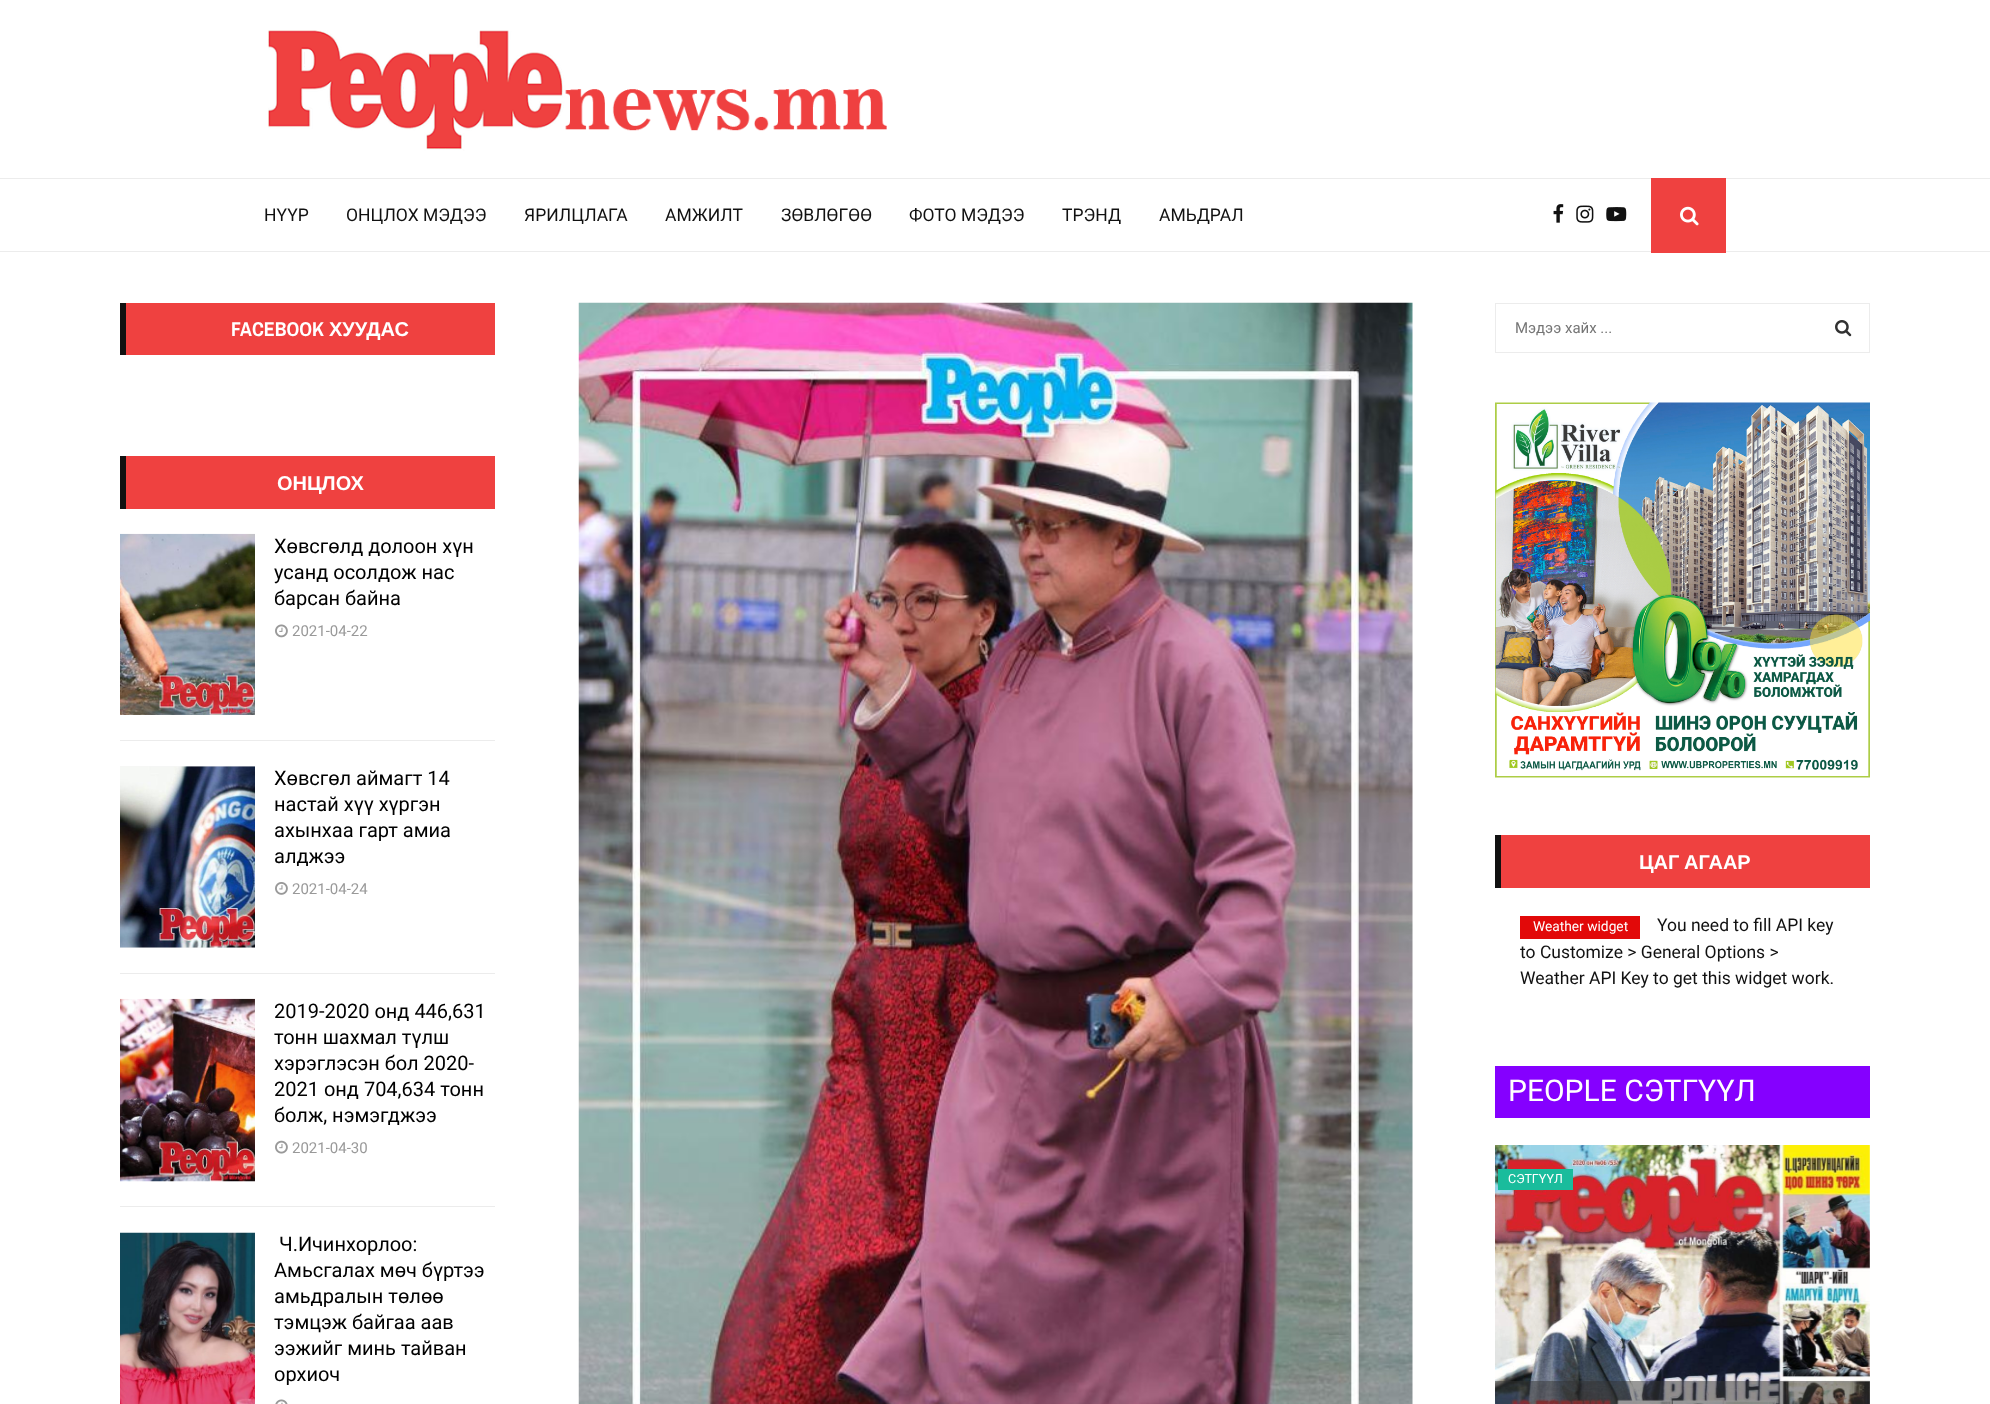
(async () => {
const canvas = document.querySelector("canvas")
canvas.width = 1990
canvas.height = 1404
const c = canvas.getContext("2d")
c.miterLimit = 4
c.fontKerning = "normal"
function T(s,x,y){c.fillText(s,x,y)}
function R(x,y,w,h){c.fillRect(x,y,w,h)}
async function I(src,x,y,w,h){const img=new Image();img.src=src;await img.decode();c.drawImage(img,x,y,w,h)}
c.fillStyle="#fff"
R(0,0,1990,1404)
await I("1.png",268,30,619,121)
c.fillStyle="#ececec"
R(0,251,1990,1)
R(0,178,1990,1)
c.font="17.5px Roboto"
c.fillStyle="#111"
T("НҮҮР",264,221)
T("ОНЦЛОХ МЭДЭЭ",346,221)
T("ЯРИЛЦЛАГА",524,221)
T("АМЖИЛТ",665,221)
T("ЗӨВЛӨГӨӨ",781,221)
T("ФОТО МЭДЭЭ",909,221)
T("ТРЭНД",1062,221)
T("АМЬДРАЛ",1159,221)
await I("2.png",1553,204,11,19)
await I("3.png",1576,205,18,18)
await I("4.png",1606,207,21,15)
c.fillStyle="#ef4140"
R(1651,178,75,75)
await I("5.png",1680,206,19,20)
R(126,303,369,52)
c.fillStyle="#111"
R(120,303,6,52)
c.font="bold 20px Archivo Narrow"
c.fillStyle="#fff"
T("FACEBOOK",231,336)
c.font="bold 20px Liberation Sans"
T("ХУУДАС",329,336)
c.fillStyle="#ef4140"
R(126,456,369,53)
c.fillStyle="#111"
R(120,456,6,53)
c.fillStyle="#fff"
T("ОНЦЛОХ",277,490)
c.fillStyle="#ececec"
R(120,740,375,1)
await I("6.png",120,533,135,182)
c.font="20px Roboto"
c.fillStyle="#000"
T("Хөвсгөлд долоон хүн",274,553)
T("усанд осолдож нас",274,579)
T("барсан байна",274,605)
await I("7.png",275,624,13,14)
c.font="15px Roboto"
c.fillStyle="#999"
T("2021-04-22",292,636)
c.fillStyle="#ececec"
R(120,973,375,1)
c.fillStyle="#f5f5f5"
R(120,766,135,182)
await I("8.png",120,766,135,182)
c.font="20px Roboto"
c.fillStyle="#000"
T("Хөвсгөл аймагт 14",274,785)
T("настай хүү хүргэн",274,811)
T("ахынхаа гарт амиа",274,837)
T("алджээ",274,863)
await I("9.png",275,882,13,13)
c.font="15px Roboto"
c.fillStyle="#999"
T("2021-04-24",292,894)
c.fillStyle="#ececec"
R(120,1206,375,1)
await I("10.png",120,998,135,184)
c.font="20px Roboto"
c.fillStyle="#000"
T("2019-2020 онд 446,631",274,1018)
T("тонн шахмал түлш",274,1044)
T("хэрэглэсэн бол 2020-",274,1070)
T("2021 онд 704,634 тонн",274,1096)
T("болж, нэмэгджээ",274,1122)
await I("11.png",275,1140,13,14)
c.font="15px Roboto"
c.fillStyle="#999"
T("2021-04-30",292,1153)
await I("12.png",120,1232,135,172)
c.font="20px Roboto"
c.fillStyle="#000"
T("Ч.Ичинхорлоо:",279,1251)
T("Амьсгалах мөч бүртээ",274,1277)
T("амьдралын төлөө",274,1303)
T("тэмцэж байгаа аав",274,1329)
T("ээжийг минь тайван",274,1355)
T("орхиоч",274,1381)
await I("13.png",275,1399,13,5)
await I("14.png",578,302,835,1102)
c.strokeStyle="#ececec"
c.strokeRect(1495.5,303.5,374,49)
c.font="15px Roboto"
c.fillStyle="#757575"
T("Мэдээ хайх ...",1515,333)
await I("15.png",1835,320,17,17)
await I("16.png",1495,402,375,376)
c.fillStyle="#ef4140"
R(1501,835,369,53)
c.fillStyle="#111"
R(1495,835,6,53)
c.wordSpacing="-1px"
c.font="bold 20px Liberation Sans"
c.fillStyle="#fff"
T("ЦАГ АГААР",1639,869)
c.fillStyle="#e20909"
R(1520,916,120,23)
c.wordSpacing="0px"
c.font="13.75px Roboto"
c.fillStyle="#fff"
T("Weather widget",1533,931)
c.font="17.5px Roboto"
c.fillStyle="#111"
T("You need to fill API key",1657,931)
T("to Customize > General Options >",1520,958)
T("Weather API Key to get this widget work.",1520,984)
c.fillStyle="#8500ff"
R(1495,1066,375,52)
c.font="30px Roboto"
c.fillStyle="#fff"
T("PEOPLE СЭТГҮҮЛ",1508,1101)
await I("17.png",1495,1145,375,259)
c.fillStyle="#1abc9c"
R(1498,1169,75,21)
c.font="12.5px Roboto"
c.fillStyle="#fff"
T("СЭТГҮҮЛ",1508,1183)
c.fillStyle="#33333380"
R(1495,1381,375,23)
})()
